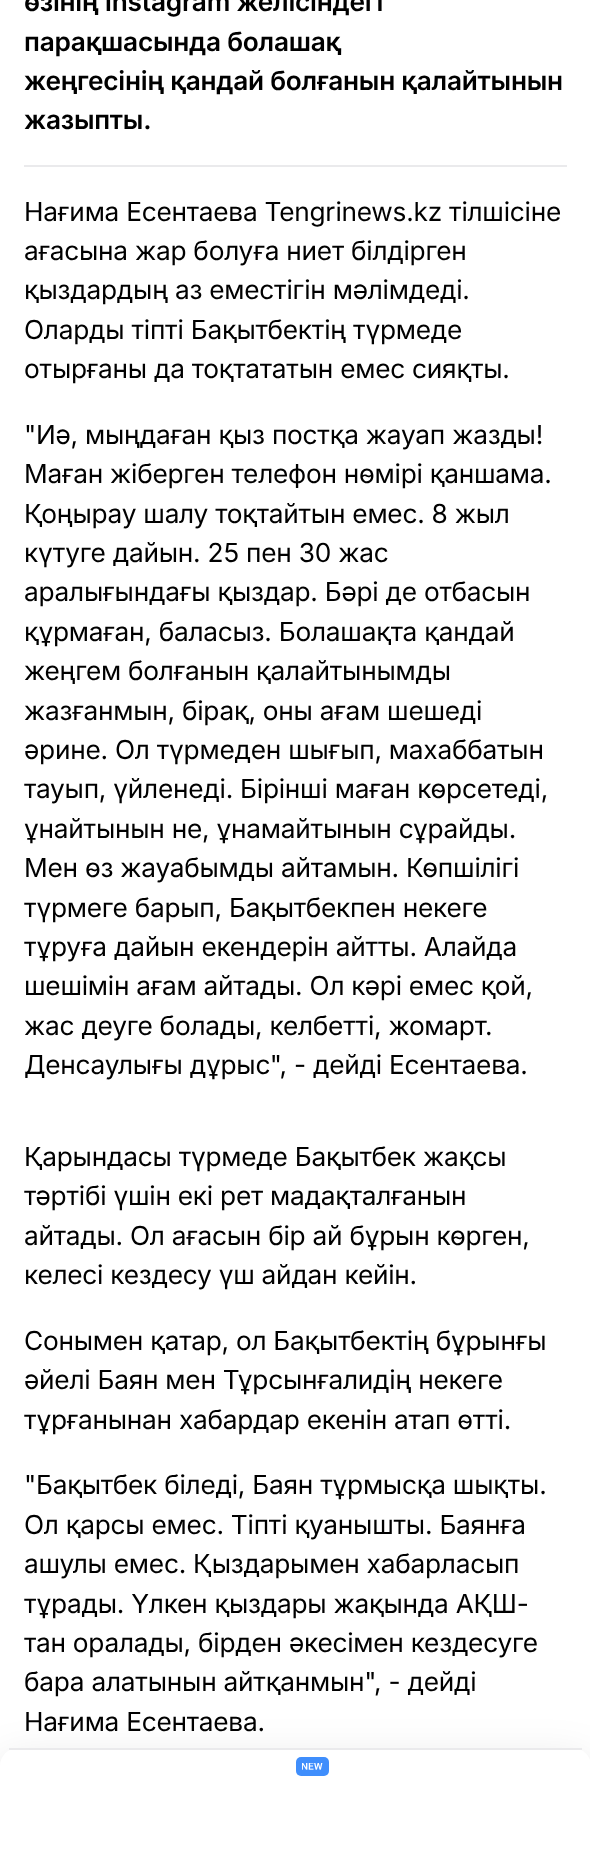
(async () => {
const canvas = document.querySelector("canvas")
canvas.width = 590
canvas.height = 1850
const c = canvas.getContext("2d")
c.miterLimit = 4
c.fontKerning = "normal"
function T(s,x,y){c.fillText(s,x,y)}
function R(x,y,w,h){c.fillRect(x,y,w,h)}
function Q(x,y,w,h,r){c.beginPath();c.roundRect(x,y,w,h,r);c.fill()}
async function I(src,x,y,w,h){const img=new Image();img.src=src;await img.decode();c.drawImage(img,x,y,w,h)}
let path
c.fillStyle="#fff"
R(0,0,590,1850)
c.fillStyle="#eaeaec"
R(24,165,543,2)
c.letterSpacing="-0.25px"
c.font="600 26.25px Inter"
c.fillStyle="#000"
T("өзінің Instagram желісіндегі",24,11)
T("парақшасында болашақ",24,51)
T("жеңгесінің қандай болғанын қалайтынын",24,90)
T("жазыпты.",24,129)
c.font="26.25px Inter"
T("Нағима Есентаева Tengrinews.kz тілшісіне",24,221)
T("ағасына жар болуға ниет білдірген",24,260)
T("қыздардың аз еместігін мәлімдеді.",24,299)
T("Оларды тіпті Бақытбектің түрмеде",24,339)
T("отырғаны да тоқтататын емес сияқты.",24,378)
T("\"Иә, мыңдаған қыз постқа жауап жазды!",24,444)
T("Маған жіберген телефон нөмірі қаншама.",24,483)
T("Қоңырау шалу тоқтайтын емес. 8 жыл",24,523)
T("күтуге дайын. 25 пен 30 жас",24,562)
T("аралығындағы қыздар. Бәрі де отбасын",24,601)
T("құрмаған, баласыз. Болашақта қандай",24,641)
T("жеңгем болғанын қалайтынымды",24,680)
T("жазғанмын, бірақ, оны ағам шешеді",24,720)
T("әрине. Ол түрмеден шығып, махаббатын",24,759)
T("тауып, үйленеді. Бірінші маған көрсетеді,",24,798)
T("ұнайтынын не, ұнамайтынын сұрайды.",24,838)
T("Мен өз жауабымды айтамын. Көпшілігі",24,877)
T("түрмеге барып, Бақытбекпен некеге",24,917)
T("тұруға дайын екендерін айтты. Алайда",24,956)
T("шешімін ағам айтады. Ол кәрі емес қой,",24,995)
T("жас деуге болады, келбетті, жомарт.",24,1035)
T("Денсаулығы дұрыс\", - дейді Есентаева.",24,1074)
T("Қарындасы түрмеде Бақытбек жақсы",24,1166)
T("тәртібі үшін екі рет мадақталғанын",24,1205)
T("айтады. Ол ағасын бір ай бұрын көрген,",24,1245)
T("келесі кездесу үш айдан кейін.",24,1284)
T("Сонымен қатар, ол Бақытбектің бұрынғы",24,1350)
T("әйелі Баян мен Тұрсынғалидің некеге",24,1389)
T("тұрғанынан хабардар екенін атап өтті.",24,1429)
T("\"Бақытбек біледі, Баян тұрмысқа шықты.",24,1494)
T("Ол қарсы емес. Тіпті қуанышты. Баянға",24,1534)
T("ашулы емес. Қыздарымен хабарласып",24,1573)
T("тұрады. Үлкен қыздары жақында АҚШ-",24,1613)
T("тан оралады, бірден әкесімен кездесуге",24,1652)
T("бара алатынын айтқанмын\", - дейді",24,1691)
T("Нағима Есентаева.",24,1731)
c.fillStyle="#0000001f"
c.filter="blur(22.5px)"
c.beginPath()
c.roundRect(0,1763,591,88,18)
c.fill()
c.filter="none"
c.fillStyle="#fff"
path = new Path2D("M18 1748h555c10 0 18 8 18 18v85h-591v-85c0-10 8-18 18-18z")
c.fill(path)
c.fillStyle="#eaeaec"
R(9,1748,573,2)
c.fillStyle="#3f8efc"
Q(296,1757,33,19,5)
await I("1.png",302,1763,21,7)
})()
